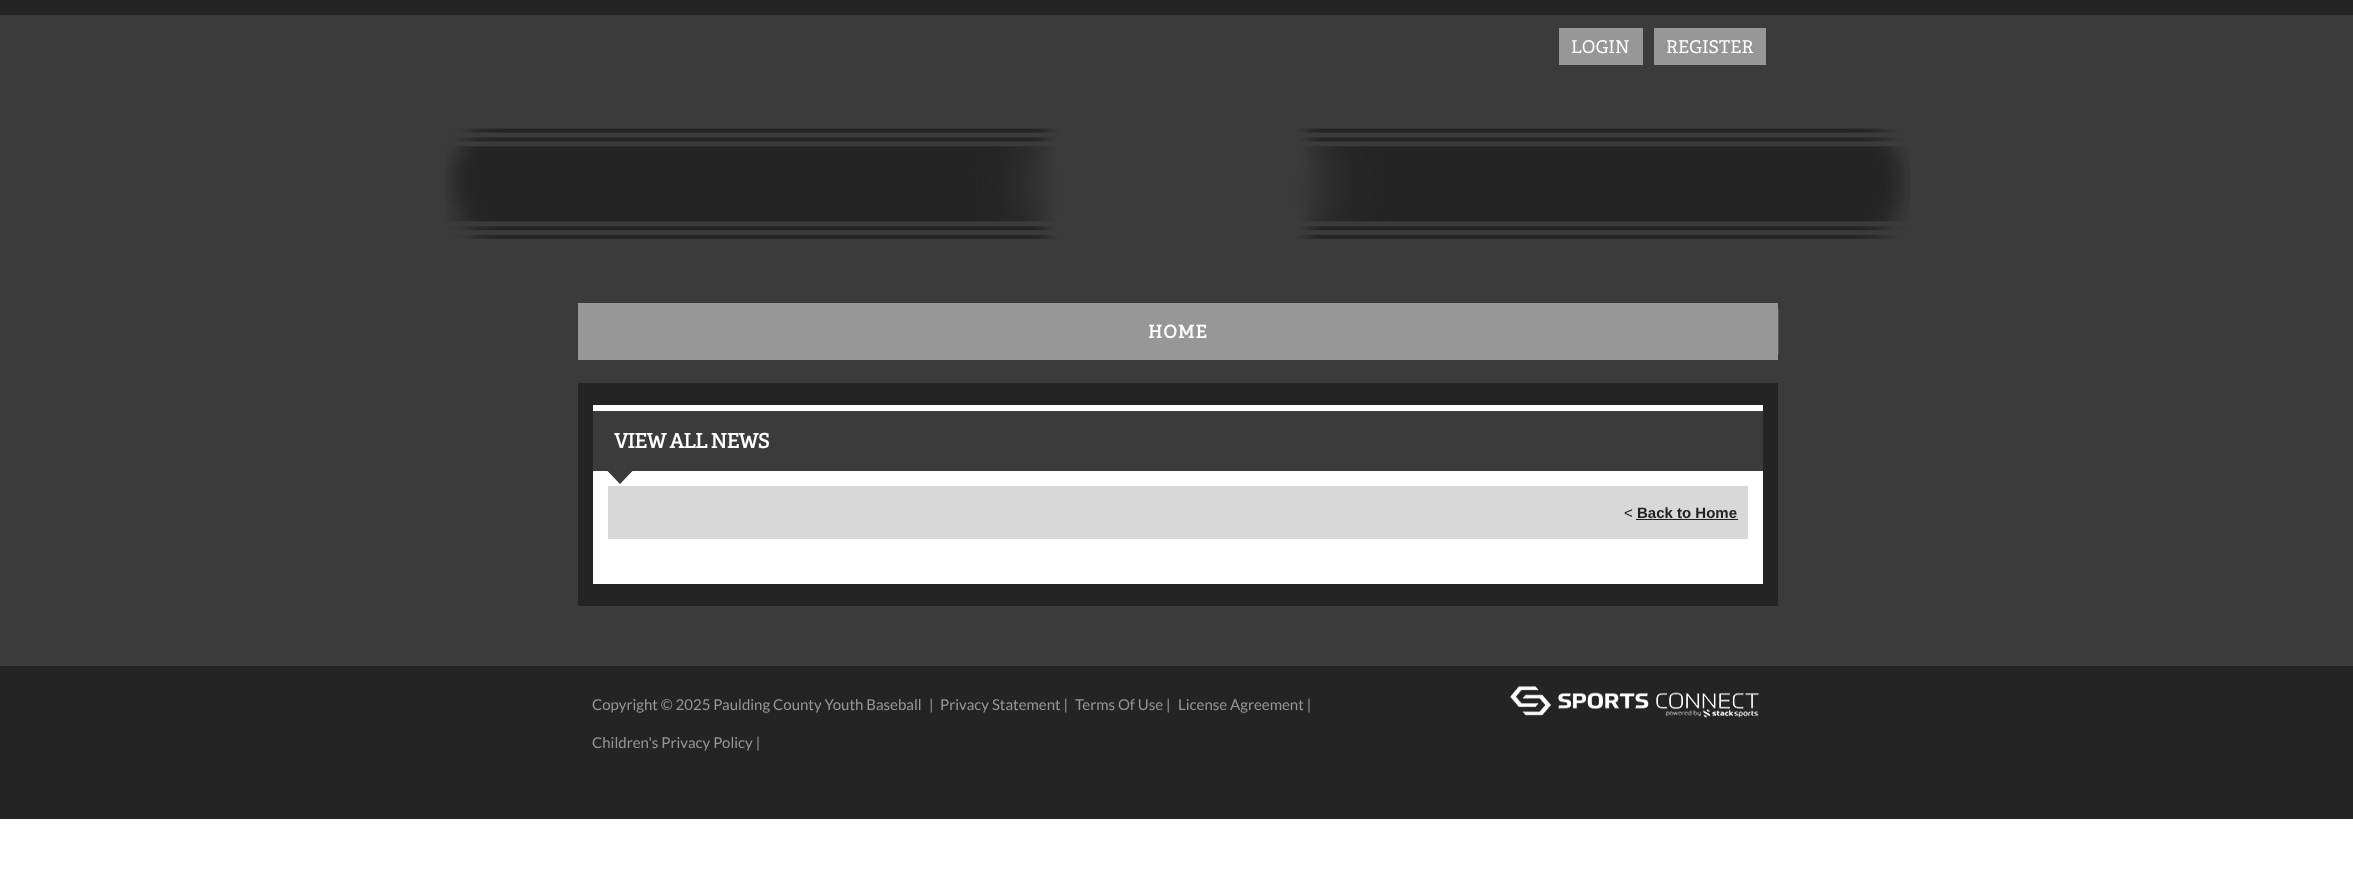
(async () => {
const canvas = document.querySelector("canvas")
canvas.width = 2353
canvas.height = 870
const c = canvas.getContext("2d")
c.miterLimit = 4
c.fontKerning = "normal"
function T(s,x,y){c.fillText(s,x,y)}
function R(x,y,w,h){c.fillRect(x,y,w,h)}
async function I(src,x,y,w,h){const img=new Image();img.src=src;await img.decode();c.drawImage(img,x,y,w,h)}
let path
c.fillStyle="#fff"
R(0,0,2353,870)
c.fillStyle="#3b3b3b"
R(0,15,2353,651)
c.fillStyle="#242424"
R(0,0,2353,15)
c.fillStyle="#979797"
R(1559,28,84,37)
c.font="17.5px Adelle"
c.fillStyle="#fff"
T("LOGIN",1571,53)
c.fillStyle="#979797"
R(1654,28,112,37)
c.fillStyle="#fff"
T("REGISTER",1666,53)
await I("1.png",445,128,1465,111)
c.fillStyle="#979797"
R(578,303,1200,57)
c.letterSpacing="1px"
c.font="bold 17.5px Adelle"
c.fillStyle="#fff"
T("HOME",1148,338)
c.fillStyle="#595959"
R(1778,309,1,45)
c.fillStyle="#242424"
R(578,383,1200,223)
c.fillStyle="#3b3b3b"
R(593,411,1170,60)
c.fillStyle="#fff"
R(593,405,1170,6)
c.letterSpacing="-0.6px"
c.font="bold 20px Adelle"
T("VIEW ALL NEWS",614,448)
R(593,471,1170,113)
c.fillStyle="#3b3b3b"
path = new Path2D("M607.5 471h25l-12.5 13z")
c.fill(path)
c.fillStyle="#d8d8d8"
R(608,486,1140,53)
c.letterSpacing="0px"
c.font="15px Liberation Sans"
c.fillStyle="#222"
T("<",1624,518)
c.font="bold 15px Liberation Sans"
T("Back to Home",1637,518)
R(1636,519,102,1)
c.fillStyle="#242424"
R(0,666,2353,153)
c.font="15px Lato"
c.fillStyle="#979797"
T("Copyright © 2025 Paulding County Youth Baseball",592,710)
T("|",929,710)
T("Privacy Statement |",940,710)
T("Terms Of Use |",1075,710)
T("License Agreement |",1178,710)
T("Children's Privacy Policy |",592,748)
await I("2.png",1510,686,249,32)
})()
